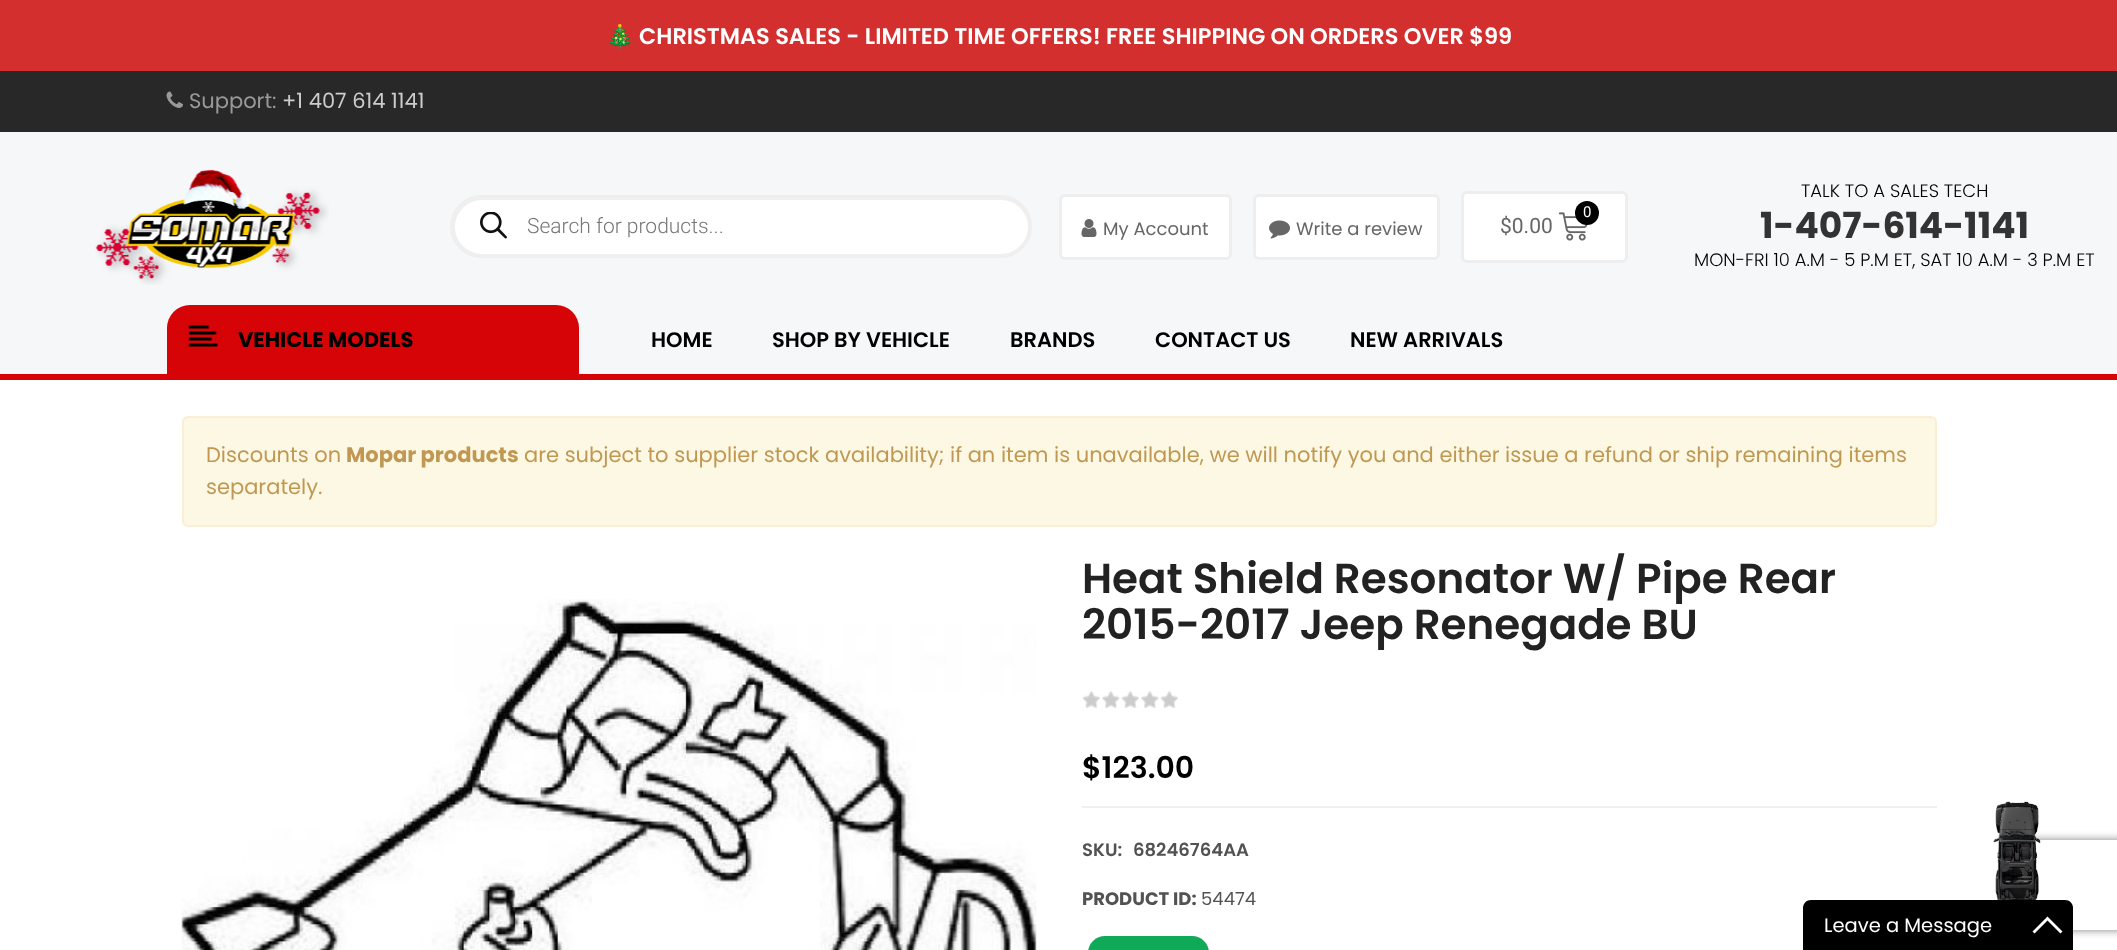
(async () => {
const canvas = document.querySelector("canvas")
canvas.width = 2117
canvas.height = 950
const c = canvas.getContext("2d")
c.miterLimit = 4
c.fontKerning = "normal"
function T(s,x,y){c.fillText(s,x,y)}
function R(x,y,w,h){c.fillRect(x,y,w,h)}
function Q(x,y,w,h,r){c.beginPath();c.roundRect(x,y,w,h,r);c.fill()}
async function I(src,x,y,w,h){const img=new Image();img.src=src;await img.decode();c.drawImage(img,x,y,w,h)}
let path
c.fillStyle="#fff"
R(0,0,2117,950)
c.fillStyle="#d32f2f"
R(0,0,2117,71)
c.font="bold 22.5px Noto Color Emoji"
c.fillStyle="#fff"
T("🎄",606,44)
c.font="600 22.5px Poppins"
T("CHRISTMAS SALES - LIMITED TIME OFFERS! FREE SHIPPING ON ORDERS OVER $99",639,44)
c.fillStyle="#282828"
R(0,71,2117,61)
await I("1.png",166,91,17,17)
c.font="21px Poppins"
c.fillStyle="#999"
T("Support:",189,108)
c.fillStyle="#ccc"
T("+1 407 614 1141",282,108)
c.fillStyle="#f6f7f9"
R(0,132,2117,242)
await I("2.png",95,170,234,115)
c.beginPath()
c.roundRect(451,196,580,61,30.5)
c.strokeStyle="#eee"
c.lineWidth=2
c.stroke()
c.fillStyle="#fff"
c.beginPath()
c.roundRect(453.5,198.5,576,57,28.5)
c.fill()
c.strokeStyle="#efefef"
c.lineWidth=3
c.stroke()
await I("3.png",480,212,27,27)
c.font="300 21px Roboto"
c.fillStyle="#777"
T("Search for products...",527,233)
c.fillStyle="#fff"
c.beginPath()
c.roundRect(1060.5,195.5,170,63,4.5)
c.fill()
c.strokeStyle="#eee"
c.stroke()
await I("4.png",1081,219,16,18)
c.font="18px Poppins"
c.fillStyle="#666"
T("My Account",1103,235)
c.fillStyle="#fff"
c.beginPath()
c.roundRect(1254.5,195.5,184,63,4.5)
c.fill()
c.stroke()
await I("5.png",1269,220,21,19)
c.fillStyle="#666"
T("Write a review",1296,235)
c.fillStyle="#fff"
c.beginPath()
c.roundRect(1462.5,192.5,164,69,4.5)
c.fill()
c.stroke()
await I("6.png",1558,212,30,29)
c.fillStyle="#000"
c.beginPath()
c.arc(1587,213,12,0,7)
c.fill()
c.font="15px Roboto"
c.fillStyle="#fff"
T("0",1583,217)
c.font="21px Roboto"
c.fillStyle="#666"
T("$0.00",1500,233)
c.font="300 18px Poppins"
c.fillStyle="#000"
T("TALK TO A SALES TECH",1801,197)
c.font="bold 36px Poppins"
c.fillStyle="#333"
T("1-407-614-1141",1760,238)
c.font="300 18px Poppins"
c.fillStyle="#000"
T("MON-FRI 10 A.M - 5 P.M ET, SAT 10 A.M - 3 P.M ET",1694,266)
c.fillStyle="#d60407"
R(0,374,2117,6)
c.beginPath()
c.roundRect(167,305,412,69,[23,23,0,0])
c.fill()
await I("7.png",188,325,30,22)
c.font="bold 21px Poppins"
c.fillStyle="#000"
T("VEHICLE MODELS",238,347)
c.font="600 21px Poppins"
T("HOME",651,347)
T("SHOP BY VEHICLE",772,347)
T("BRANDS",1010,347)
T("CONTACT US",1155,347)
T("NEW ARRIVALS",1350,347)
c.fillStyle="#fcf8e3"
c.beginPath()
c.roundRect(183,417,1753,109,5)
c.fill()
c.strokeStyle="#fbeed5"
c.lineWidth=2
c.stroke()
c.font="21px Poppins"
c.fillStyle="#c09853"
T("Discounts on",206,462)
c.font="bold 21px Poppins"
T("Mopar products",346,462)
c.font="21px Poppins"
T("are subject to supplier stock availability; if an item is unavailable, we will notify you and either issue a refund or ship remaining items",524,462)
T("separately.",206,494)
await I("8.png",181,599,856,351)
c.font="600 42px Poppins"
c.fillStyle="#222"
T("Heat Shield Resonator W/ Pipe Rear",1082,593)
T("2015-2017 Jeep Renegade BU",1082,639)
await I("9.png",1082,691,96,17)
c.font="600 30px Poppins"
c.fillStyle="#000"
T("$123.00",1082,778)
c.fillStyle="#f0f0ed"
R(1082,806,855,2)
c.font="600 18px Poppins"
c.fillStyle="#525252"
T("SKU:",1082,856)
T("68246764AA",1133,856)
c.font="bold 18px Poppins"
T("PRODUCT ID:",1082,905)
c.font="18px Poppins"
T("54474",1201,905)
c.fillStyle="#0fa958"
Q(1088,936,121,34,19.5)
c.save()
path = new Path2D("M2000 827h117v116h-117zm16 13h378c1.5 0 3 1.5 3 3v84c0 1.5-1.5 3-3 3h-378c-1.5 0-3-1.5-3-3v-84c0-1.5 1.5-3 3-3z")
c.clip(path,"evenodd")
c.fillStyle="#808080"
c.filter="blur(4px)"
c.beginPath()
c.roundRect(2013,840,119,90,3)
c.fill()
c.filter="none"
c.restore()
await I("10.png",1993,801,48,99)
c.fillStyle="#000"
path = new Path2D("M1811 900h254c4.5 0 8 3.5 8 8v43h-270v-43c0-4.5 3.5-8 8-8z")
c.fill(path)
c.font="19.5px Poppins"
c.fillStyle="#fff"
T("Leave a Message",1824,932)
path = new Path2D("M2047.5 916.5l15 15l-2 2l-13-13l-13 13l-2-2z")
c.fill(path)
})()
